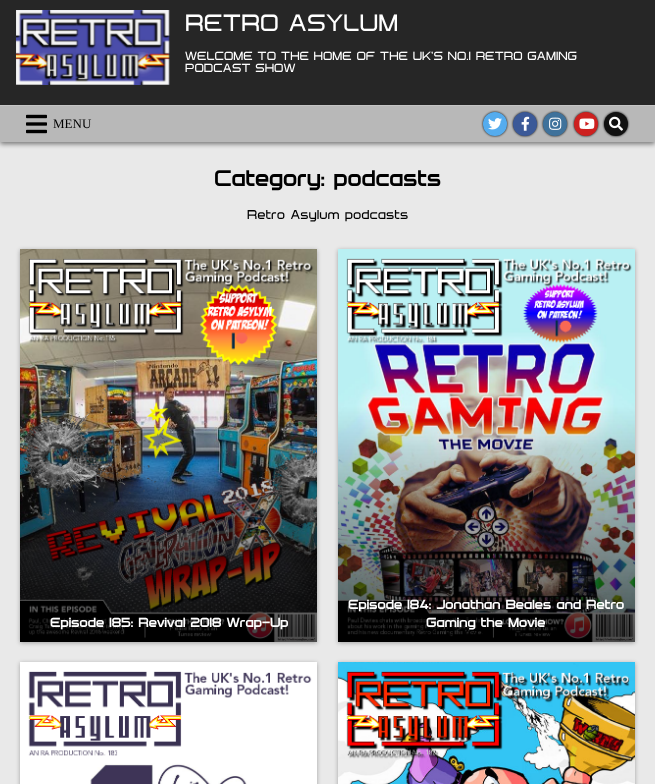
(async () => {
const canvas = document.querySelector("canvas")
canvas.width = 655
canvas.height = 784
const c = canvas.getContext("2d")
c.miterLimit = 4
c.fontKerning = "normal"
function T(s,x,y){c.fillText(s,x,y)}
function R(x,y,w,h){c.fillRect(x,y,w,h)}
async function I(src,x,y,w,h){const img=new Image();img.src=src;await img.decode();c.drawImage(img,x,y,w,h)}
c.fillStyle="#e9e9e9"
R(0,0,655,784)
c.fillStyle="#00000080"
c.filter="blur(2.5px)"
c.beginPath()
c.rect(0,107,655,37)
c.fill()
c.filter="none"
c.fillStyle="#262626"
R(0,0,655,105)
await I("1.png",16,10,154,75)
c.font="24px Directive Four"
c.fillStyle="#fff"
T("RETRO ASYLUM",185,31)
c.font="12px Directive Four"
T("WELCOME TO THE HOME OF THE UK'S NO.1 RETRO GAMING",185,60)
T("PODCAST SHOW",185,72)
c.fillStyle="#b8b8b8"
R(0,106,655,36)
c.fillStyle="#c5c5c5"
R(0,105,655,1)
await I("2.png",26,114,21,20)
c.font="13px Liberation Serif"
c.fillStyle="#000"
T("MENU",53,128)
c.filter="blur(1px)"
c.beginPath()
c.roundRect(483,112,24,24,12)
c.fill()
c.filter="none"
c.fillStyle="#55acee"
c.beginPath()
c.arc(495,124,12,0,7)
c.fill()
await I("3.png",488,118,14,12)
c.fillStyle="#000"
c.filter="blur(1px)"
c.beginPath()
c.roundRect(513,112,24,24,12)
c.fill()
c.filter="none"
c.fillStyle="#3b5998"
c.beginPath()
c.arc(525,124,12,0,7)
c.fill()
await I("4.png",521,116,9,15)
c.fillStyle="#000"
c.filter="blur(1px)"
c.beginPath()
c.roundRect(543,112,24,24,12)
c.fill()
c.filter="none"
c.fillStyle="#3f729b"
c.beginPath()
c.arc(555,124,12,0,7)
c.fill()
await I("5.png",549,117,13,13)
c.fillStyle="#000"
c.filter="blur(1px)"
c.beginPath()
c.roundRect(574,112,24,24,12)
c.fill()
c.filter="none"
c.fillStyle="#cd201f"
c.beginPath()
c.arc(586,124,12,0,7)
c.fill()
await I("6.png",579,118,16,11)
c.fillStyle="#000"
c.filter="blur(1px)"
c.beginPath()
c.roundRect(604,112,24,24,12)
c.fill()
c.filter="none"
c.fillStyle="#111"
c.beginPath()
c.arc(616,124,12,0,7)
c.fill()
await I("7.png",609,116,14,15)
c.font="bold 22px Directive Four"
c.fillStyle="#000"
T("Category: podcasts",214,186)
c.font="13px Directive Four"
T("Retro Asylum podcasts",247,219)
c.fillStyle="#0000004d"
c.filter="blur(2px)"
c.beginPath()
c.rect(20,250,297,393)
c.fill()
c.filter="none"
await I("8.png",20,249,297,393)
c.font="bold 13px Directive Four"
c.fillStyle="#fff"
T("Episode 185: Revival 2018 Wrap-Up",50,627)
c.fillStyle="#0000004d"
c.filter="blur(2px)"
c.beginPath()
c.rect(338,250,297,393)
c.fill()
c.filter="none"
await I("9.png",338,249,297,393)
c.fillStyle="#fff"
T("Episode 184: Jonathan Beales and Retro",348,609)
T("Gaming the Movie",426,627)
c.fillStyle="#0000004d"
c.filter="blur(2px)"
c.beginPath()
c.rect(20,663,297,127)
c.fill()
c.filter="none"
await I("10.png",20,662,297,122)
c.filter="blur(2px)"
c.beginPath()
c.rect(338,663,297,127)
c.fill()
c.filter="none"
await I("11.png",338,662,297,122)
})()
